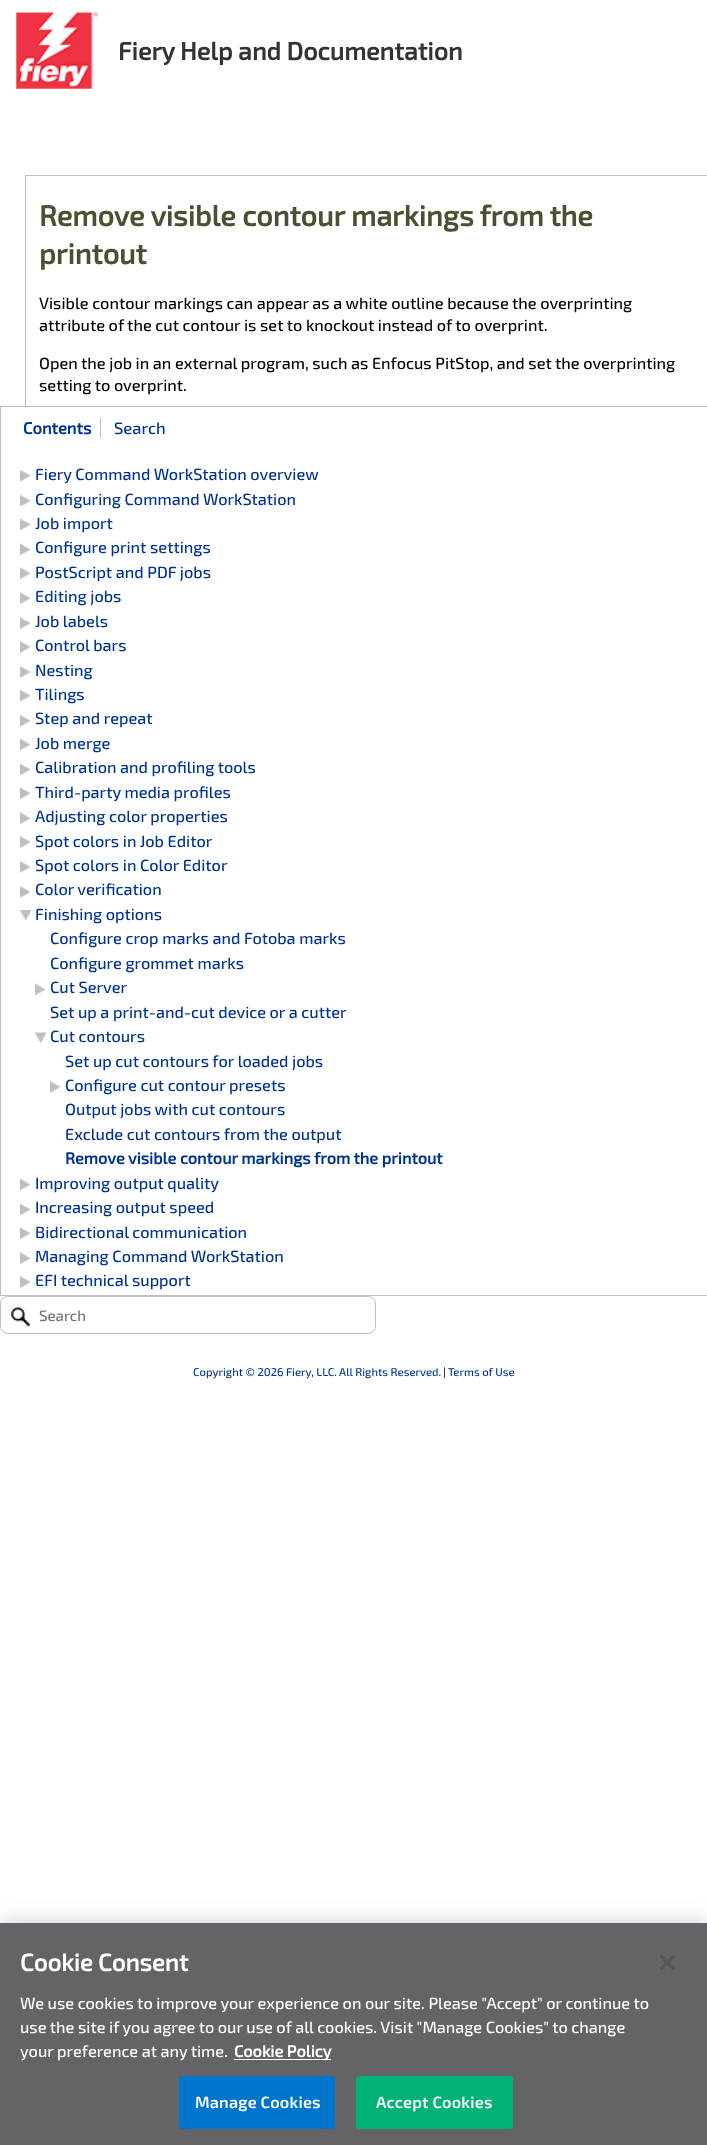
(async () => {
const canvas = document.querySelector("canvas")
canvas.width = 707
canvas.height = 2145
const c = canvas.getContext("2d")
c.miterLimit = 4
c.fontKerning = "normal"
function T(s,x,y){c.fillText(s,x,y)}
function R(x,y,w,h){c.fillRect(x,y,w,h)}
async function I(src,x,y,w,h){const img=new Image();img.src=src;await img.decode();c.drawImage(img,x,y,w,h)}
c.fillStyle="#fff"
R(0,0,707,2145)
await I("1.png",16,12,82,77)
c.font="bold 25px 'Exo 2'"
c.fillStyle="#333"
T("Fiery Help and Documentation",118,60)
c.fillStyle="#bfbfbf"
R(25,175,682,1)
R(25,175,1,231)
c.font="bold 28.75px 'Exo 2'"
c.fillStyle="#4d4f33"
T("Remove visible contour markings from the",39,226)
T("printout",39,264)
c.font="500 16.25px 'Exo 2'"
c.fillStyle="#000"
T("Visible contour markings can appear as a white outline because the overprinting",39,309)
T("attribute of the cut contour is set to knockout instead of to overprint.",39,331)
T("Open the job in an external program, such as Enfocus PitStop, and set the overprinting",39,369)
T("setting to overprint.",39,391)
c.strokeStyle="#bfbfbf"
c.strokeRect(.5,406.5,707,889)
c.font="bold 16.5px 'Exo 2'"
c.fillStyle="#00338d"
T("Contents",23,434)
c.fillStyle="#bfbfbf"
R(100,418,1,20)
c.font="500 16.5px 'Exo 2'"
c.fillStyle="#00338d"
T("Search",114,434)
await I("2.png",20,470,10,12)
c.font="500 16.25px 'Exo 2'"
T("Fiery Command WorkStation overview",35,480)
await I("2.png",20,495,10,12)
T("Configuring Command WorkStation",35,505)
await I("3.png",20,518,10,12)
T("Job import",35,529)
await I("3.png",20,543,10,12)
T("Configure print settings",35,553)
await I("4.png",20,567,10,12)
T("PostScript and PDF jobs",35,578)
await I("4.png",20,592,10,12)
T("Editing jobs",35,602)
await I("4.png",20,617,10,12)
T("Job labels",35,627)
await I("5.png",20,641,10,12)
T("Control bars",35,651)
await I("5.png",20,666,10,12)
T("Nesting",35,676)
await I("2.png",20,690,10,12)
T("Tilings",35,700)
await I("2.png",20,715,10,12)
T("Step and repeat",35,724)
await I("3.png",20,738,10,12)
T("Job merge",35,749)
await I("3.png",20,763,10,12)
T("Calibration and profiling tools",35,773)
await I("4.png",20,787,10,12)
T("Third-party media profiles",35,798)
await I("4.png",20,812,10,12)
T("Adjusting color properties",35,822)
await I("5.png",20,836,10,12)
T("Spot colors in Job Editor",35,847)
await I("5.png",20,861,10,12)
T("Spot colors in Color Editor",35,871)
await I("5.png",20,886,10,12)
T("Color verification",35,895)
await I("6.png",20,910,12,10)
T("Finishing options",35,920)
T("Configure crop marks and Fotoba marks",50,944)
T("Configure grommet marks",50,969)
await I("3.png",35,983,10,12)
T("Cut Server",50,993)
T("Set up a print-and-cut device or a cutter",50,1018)
await I("7.png",35,1032,12,11)
T("Cut contours",50,1042)
T("Set up cut contours for loaded jobs",65,1067)
await I("8.png",50,1081,10,12)
T("Configure cut contour presets",65,1091)
T("Output jobs with cut contours",65,1115)
T("Exclude cut contours from the output",65,1140)
c.font="bold 16.25px 'Exo 2'"
T("Remove visible contour markings from the printout",65,1164)
await I("3.png",20,1178,10,12)
c.font="500 16.25px 'Exo 2'"
T("Improving output quality",35,1189)
await I("3.png",20,1203,10,12)
T("Increasing output speed",35,1213)
await I("4.png",20,1227,10,12)
T("Bidirectional communication",35,1238)
await I("4.png",20,1252,10,12)
T("Managing Command WorkStation",35,1262)
await I("5.png",20,1276,10,12)
T("EFI technical support",35,1286)
c.beginPath()
c.roundRect(.5,1296.5,375,37,7.5)
c.stroke()
await I("9.png",11,1307,19,20)
c.font="500 15px 'Exo 2'"
c.fillStyle="#757575"
T("Search",39,1321)
c.font="500 11.25px 'Exo 2'"
c.fillStyle="#00338d"
T("Copyright © 2026 Fiery, LLC. All Rights Reserved.",193,1376)
c.fillStyle="#000"
T("|",443,1376)
c.fillStyle="#00338d"
T("Terms of Use",448,1376)
c.fillStyle="#00000033"
c.filter="blur(11px)"
c.beginPath()
c.rect(0,1923,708,222)
c.fill()
c.filter="none"
c.fillStyle="#636368"
R(0,1923,707,222)
c.font="bold 24px 'Exo 2'"
c.fillStyle="#fff"
T("Cookie Consent",20,1971)
c.font="500 16.25px 'Exo 2'"
T("We use cookies to improve your experience on our site. Please \"Accept\" or continue to",20,2009)
T("use the site if you agree to our use of all cookies. Visit \"Manage Cookies\" to change",20,2033)
T("your preference at any time.",20,2057)
R(234,2059,97,1)
c.font="bold 16.25px 'Exo 2'"
T("Cookie Policy",234,2057)
c.fillStyle="#0075cc"
c.beginPath()
c.roundRect(179.5,2076.5,155,52,2)
c.fill()
c.strokeStyle="#0075cc"
c.stroke()
c.letterSpacing="0.2px"
c.font="600 16.25px 'Exo 2'"
c.fillStyle="#fff"
T("Manage Cookies",195,2108)
c.fillStyle="#00b275"
c.beginPath()
c.roundRect(356.5,2076.5,156,52,2)
c.fill()
c.strokeStyle="#00b275"
c.stroke()
c.fillStyle="#fff"
T("Accept Cookies",376,2108)
await I("10.png",660,1955,15,15)
})()
